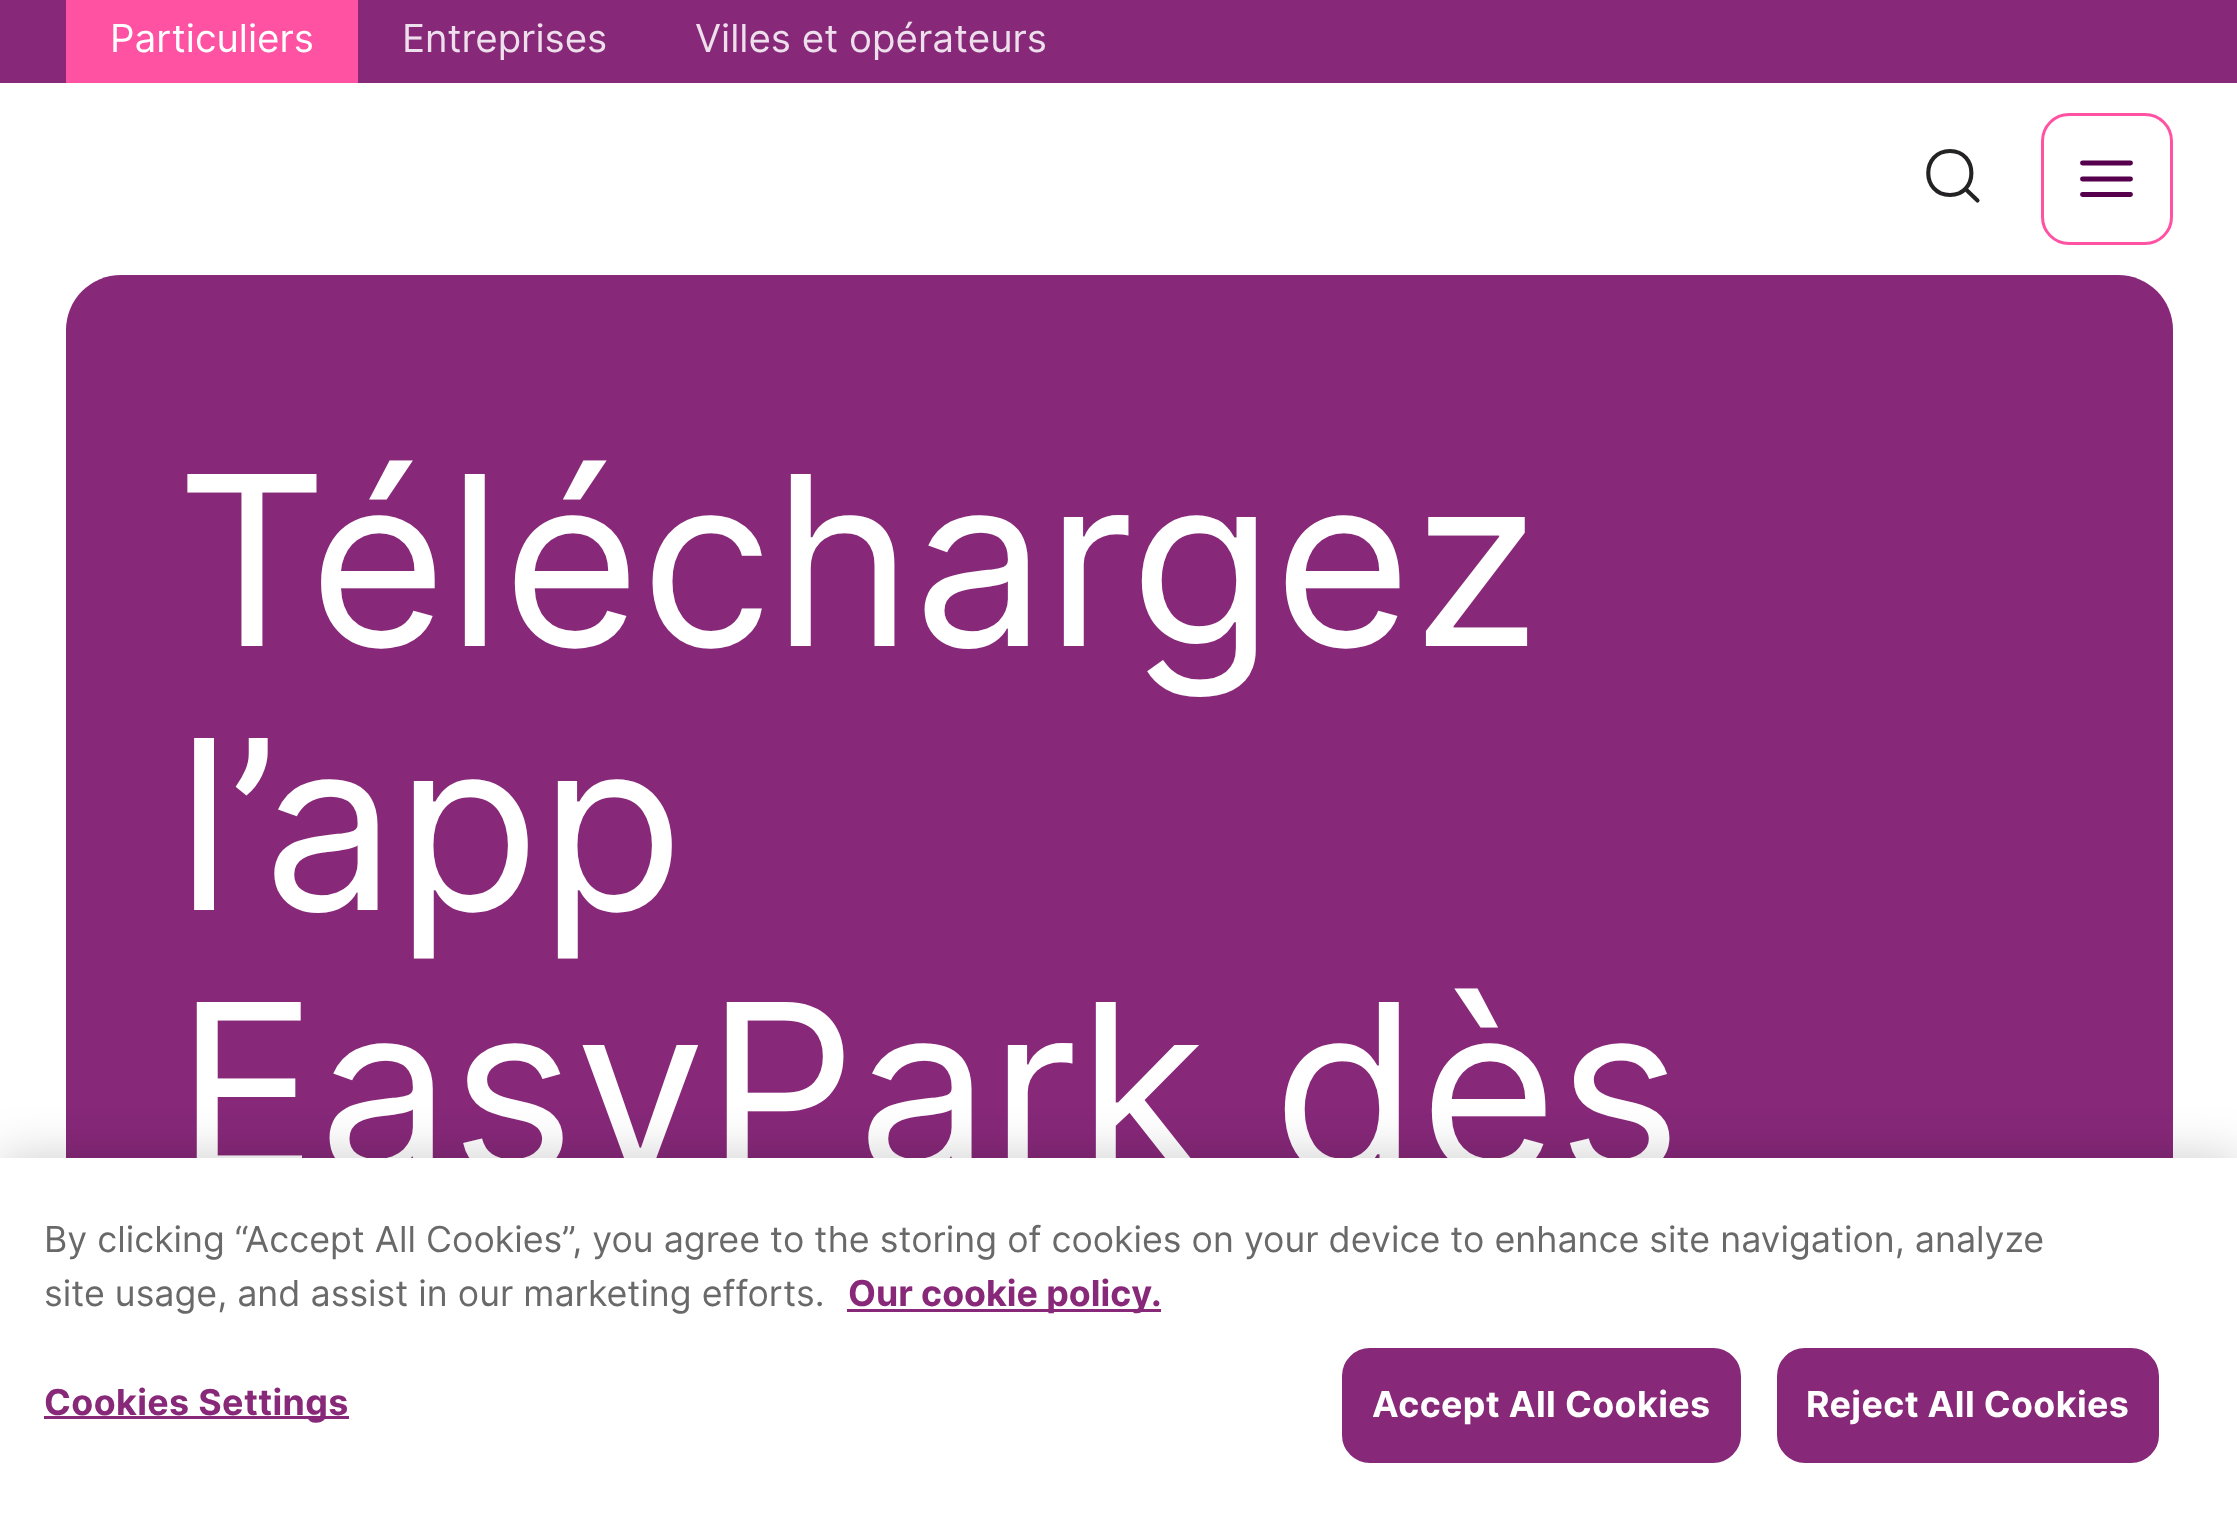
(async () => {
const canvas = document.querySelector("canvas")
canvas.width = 2237
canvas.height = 1518
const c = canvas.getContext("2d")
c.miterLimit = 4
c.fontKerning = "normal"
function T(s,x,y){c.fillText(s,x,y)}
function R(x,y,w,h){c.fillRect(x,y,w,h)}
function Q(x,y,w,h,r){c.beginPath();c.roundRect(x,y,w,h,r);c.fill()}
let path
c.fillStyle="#fff"
R(0,0,2237,1518)
c.fillStyle="#872879"
R(0,0,2237,83)
c.fillStyle="#ff52a3"
R(66,0,292,83)
c.font="38.5px Inter"
c.fillStyle="#fff"
T("Particuliers",110,52)
c.fillStyle="#eddfeb"
T("Entreprises",402,52)
T("Villes et opérateurs",695,52)
path = new Path2D("M1950 195c28.5 0 28.5-44 0-44c-29 0-29 44 0 44zm27.5 5.5l-12-11.5")
c.strokeStyle="#242224"
c.lineWidth=4.1
c.lineCap="round"
c.lineJoin="round"
c.stroke(path)
c.beginPath()
c.roundRect(2042.5,114.5,129,129,26.5)
c.strokeStyle="#ff52a3"
c.lineWidth=3
c.lineJoin="miter"
c.stroke()
path = new Path2D("M2082.5 194.5h48m-48-15.5h48m-48-16h48")
c.strokeStyle="#56004d"
c.lineWidth=4.9
c.lineJoin="round"
c.stroke(path)
c.fillStyle="#872879"
Q(66,275,2107,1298,55)
c.font="236.5px Inter"
c.fillStyle="#fff"
T("Téléchargez",176,646)
T("l’app",176,910)
T("EasyPark dès",176,1174)
c.fillStyle="#00000033"
c.filter="blur(25px)"
c.beginPath()
c.rect(0,1158,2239,360)
c.fill()
c.filter="none"
c.fillStyle="#fff"
R(0,1158,2237,360)
c.font="35.77px Inter"
c.fillStyle="#696969"
T("By clicking “Accept All Cookies”, you agree to the storing of cookies on your device to enhance site navigation, analyze",44,1252)
T("site usage, and assist in our marketing efforts.",44,1306)
c.fillStyle="#872878"
R(847,1309,314,3)
c.font="bold 35.77px Inter"
T("Our cookie policy.",848,1306)
R(44,1416,305,3)
c.letterSpacing="0.4px"
T("Cookies Settings",44,1415)
c.beginPath()
c.roundRect(1343.5,1349.5,396,112,26.5)
c.fill()
c.strokeStyle="#872878"
c.lineWidth=3
c.lineJoin="miter"
c.stroke()
c.fillStyle="#fff"
T("Accept All Cookies",1372,1417)
c.fillStyle="#872878"
c.beginPath()
c.roundRect(1778.5,1349.5,379,112,26.5)
c.fill()
c.stroke()
c.fillStyle="#fff"
T("Reject All Cookies",1806,1417)
})()
